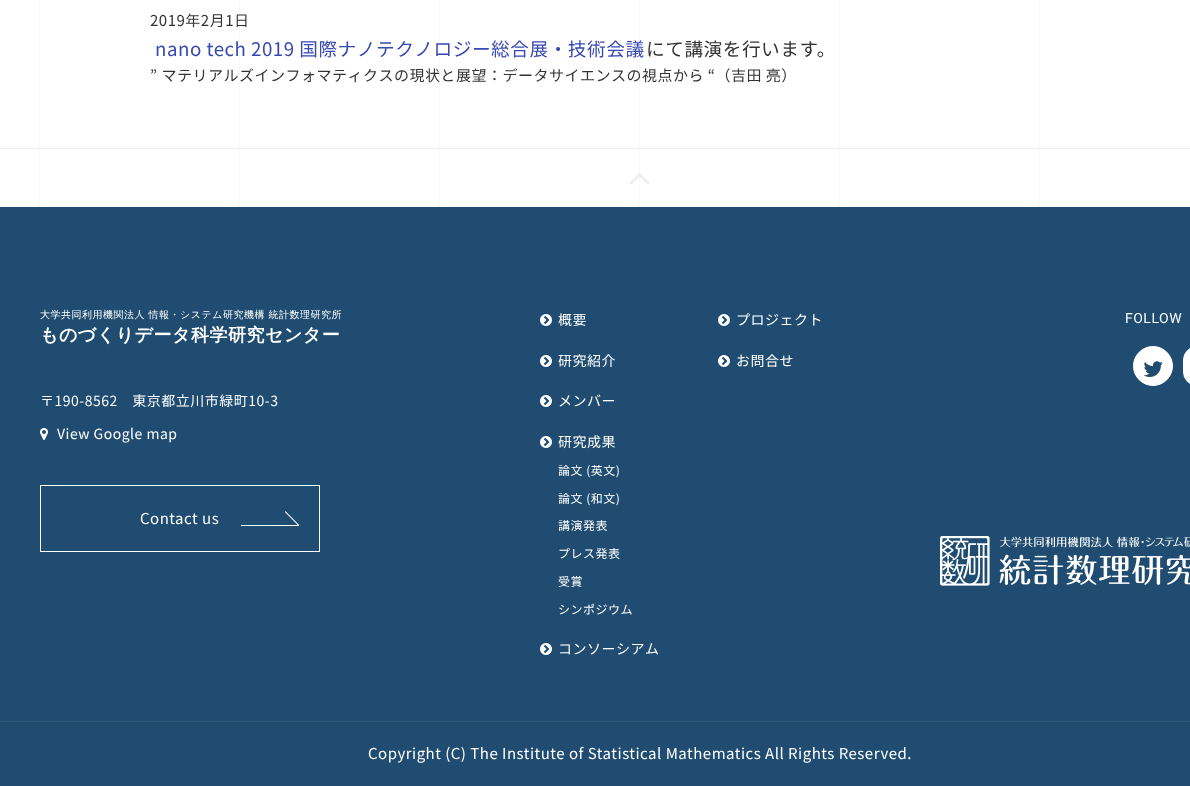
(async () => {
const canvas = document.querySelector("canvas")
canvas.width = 1190
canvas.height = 786
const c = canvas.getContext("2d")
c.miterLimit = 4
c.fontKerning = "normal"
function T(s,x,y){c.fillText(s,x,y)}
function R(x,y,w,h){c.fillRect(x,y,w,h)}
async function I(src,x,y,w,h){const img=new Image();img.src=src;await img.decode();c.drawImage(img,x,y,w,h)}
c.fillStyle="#fff"
R(0,0,1190,786)
await I("1.png",39,0,1001,148)
c.letterSpacing="0.5px"
c.font="15px Noto Sans JP"
c.fillStyle="#333"
T("2019年2月1日",150,26)
c.font="18.7px Noto Sans JP"
c.fillStyle="#3649b1"
T("nano tech 2019 国際ナノテクノロジー総合展・技術会議",155,56)
c.fillStyle="#333"
T("にて講演を行います。",646,56)
c.font="15px Noto Sans JP"
T("” マテリアルズインフォマティクスの現状と展望：データサイエンスの視点から “（吉田 亮）",150,81)
await I("2.png",0,149,1190,58)
c.fillStyle="#eee"
R(0,148,1190,1)
await I("3.png",630,173,20,12)
c.fillStyle="#1f4c70"
R(0,207,1190,579)
c.font="500 10px WenQuanYi Zen Hei"
c.fillStyle="#fff"
T("大学共同利用機関法人 情報・システム研究機構 統計数理研究所",40,318)
c.font="bold 18px WenQuanYi Zen Hei"
T("ものづくりデータ科学研究センター",40,341)
c.font="14px Noto Sans JP"
T("〒190-8562　東京都立川市緑町10-3",40,406)
await I("4.png",40,428,8,12)
T("View Google map",57,439)
await I("5.png",241,511,58,15)
c.strokeStyle="#fff"
c.strokeRect(40.5,485.5,279,66)
c.font="15px Noto Sans JP"
T("Contact us",140,524)
await I("6.png",540,314,12,12)
c.font="14px Noto Sans JP"
T("概要",558,325)
await I("6.png",540,355,12,12)
T("研究紹介",558,366)
await I("6.png",540,395,12,12)
T("メンバー",558,406)
await I("6.png",540,436,12,12)
T("研究成果",558,447)
c.font="12px Noto Sans JP"
T("論文 (英文)",558,475)
T("論文 (和文)",558,503)
T("講演発表",558,530)
T("プレス発表",558,558)
T("受賞",558,586)
T("シンポジウム",558,614)
await I("6.png",540,643,12,12)
c.font="14px Noto Sans JP"
T("コンソーシアム",558,654)
await I("6.png",718,314,12,12)
T("プロジェクト",736,325)
await I("6.png",718,355,12,12)
T("お問合せ",736,366)
c.font="14px Roboto"
T("FOLLOW",1125,323)
c.beginPath()
c.arc(1153,366,19.5,0,7)
c.fill()
c.stroke()
await I("7.png",1143,361,20,16)
c.beginPath()
c.roundRect(1183.5,346.5,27,39,19.5)
c.fill()
c.stroke()
await I("8.png",940,536,250,50)
c.fillStyle="#305979"
R(0,721,1190,1)
c.font="15px Noto Sans JP"
c.fillStyle="#fff"
T("Copyright (C) The Institute of Statistical Mathematics All Rights Reserved.",368,759)
})()
